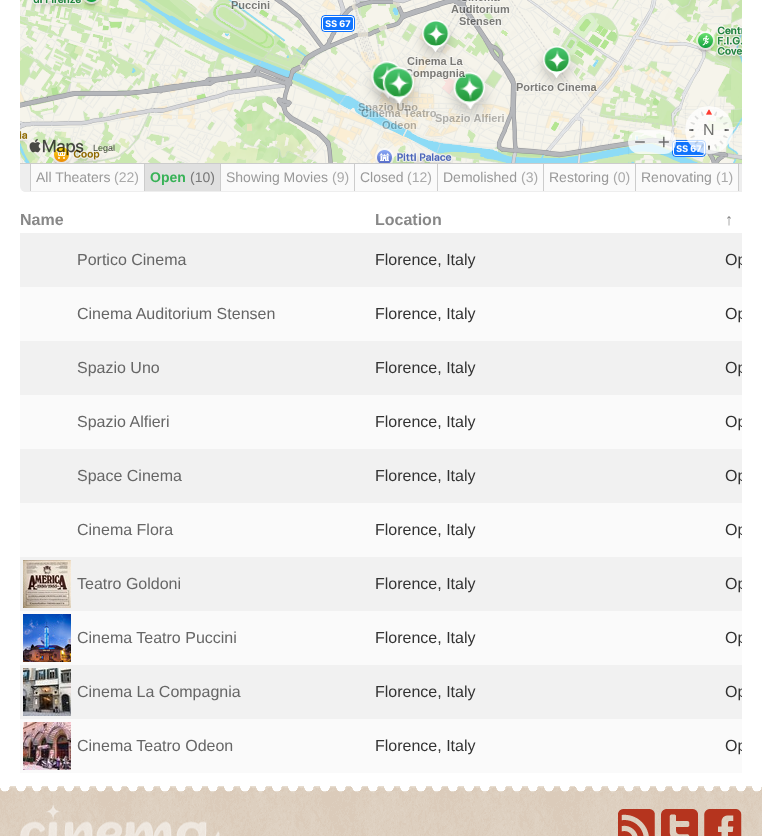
(async () => {
const canvas = document.querySelector("canvas")
canvas.width = 762
canvas.height = 836
const c = canvas.getContext("2d")
c.miterLimit = 4
c.fontKerning = "normal"
function T(s,x,y){c.fillText(s,x,y)}
function R(x,y,w,h){c.fillRect(x,y,w,h)}
function Q(x,y,w,h,r){c.beginPath();c.roundRect(x,y,w,h,r);c.fill()}
async function I(src,x,y,w,h){const img=new Image();img.src=src;await img.decode();c.drawImage(img,x,y,w,h)}
let path
c.fillStyle="#fff"
R(0,0,762,836)
await I("1.png",20,0,722,163)
await I("2.png",230,0,368,130)
c.strokeStyle="#0000000d"
c.lineWidth=0.5
c.strokeRect(628.25,130.25,48.5,24.5)
c.fillStyle="#ffffffbf"
Q(628,130,48,24,12)
await I("3.png",635,141,10,2)
await I("4.png",658,136,11,12)
c.strokeRect(685.25,106.25,48.5,48.5)
c.beginPath()
c.arc(709,130,24,0,7)
c.fill()
await I("5.png",689,109,40,41)
c.font="16px Liberation Sans"
c.fillStyle="#71716f"
T("N",703,135)
await I("6.png",29,138,55,18)
c.font="9px Liberation Sans"
c.fillStyle="#43473e"
T("Legal",93,151)
c.fillStyle="#eee"
c.beginPath()
c.roundRect(20,163,722,29,[0,0,0,6])
c.fill()
c.fillStyle="#ccc"
R(20,163,722,1)
c.save()
c.beginPath()
c.rect(20,0,722,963)
c.clip()
c.fillStyle="#eee"
path = new Path2D("M26 192h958c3 0 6-3 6-6c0 3-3 5-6 5h-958c-3 0-6-2-6-5c0 3 3 6 6 6z")
c.fill(path)
c.restore()
c.fillStyle="#fafafa"
R(31,164,113,27)
c.fillStyle="#ccc"
R(144,164,1,27)
R(30,164,1,27)
c.font="14px Liberation Sans"
c.fillStyle="#999"
T("All Theaters",36,182)
c.fillStyle="#aaa"
T("(22)",114,182)
c.fillStyle="#e0e0e0"
R(145,164,75,27)
c.fillStyle="#ccc"
R(220,164,1,27)
c.font="bold 14px Liberation Sans"
c.fillStyle="#38b257"
T("Open",150,182)
c.font="14px Liberation Sans"
c.fillStyle="#777"
T("(10)",190,182)
c.fillStyle="#fafafa"
R(221,164,133,27)
c.fillStyle="#ccc"
R(354,164,1,27)
c.fillStyle="#999"
T("Showing Movies",226,182)
c.fillStyle="#aaa"
T("(9)",332,182)
c.fillStyle="#fafafa"
R(355,164,82,27)
c.fillStyle="#ccc"
R(437,164,1,27)
c.fillStyle="#999"
T("Closed",360,182)
c.fillStyle="#aaa"
T("(12)",407,182)
c.fillStyle="#fafafa"
R(438,164,105,27)
c.fillStyle="#ccc"
R(543,164,1,27)
c.fillStyle="#999"
T("Demolished",443,182)
c.fillStyle="#aaa"
T("(3)",521,182)
c.fillStyle="#fafafa"
R(544,164,91,27)
c.fillStyle="#ccc"
R(635,164,1,27)
c.fillStyle="#999"
T("Restoring",549,182)
c.fillStyle="#aaa"
T("(0)",613,182)
c.fillStyle="#fafafa"
R(636,164,102,27)
c.fillStyle="#ccc"
R(738,164,1,27)
c.fillStyle="#999"
T("Renovating",641,182)
c.fillStyle="#aaa"
T("(1)",716,182)
c.font="bold 16px Liberation Sans"
c.fillStyle="#888"
T("Name",20,225)
T("Location",375,225)
T("↑",725,225)
c.fillStyle="#f1f1f1"
R(20,233,722,54)
c.font="16px Liberation Sans"
c.fillStyle="#666"
T("Portico Cinema",77,265)
c.fillStyle="#333"
T("Florence, Italy",375,265)
c.save()
c.beginPath()
c.rect(20,0,722,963)
c.clip()
T("Op",725,265)
c.restore()
c.fillStyle="#fafafa"
R(20,287,722,54)
c.fillStyle="#666"
T("Cinema Auditorium Stensen",77,319)
c.fillStyle="#333"
T("Florence, Italy",375,319)
c.save()
c.beginPath()
c.rect(20,0,722,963)
c.clip()
T("Op",725,319)
c.restore()
c.fillStyle="#f1f1f1"
R(20,341,722,54)
c.fillStyle="#666"
T("Spazio Uno",77,373)
c.fillStyle="#333"
T("Florence, Italy",375,373)
c.save()
c.beginPath()
c.rect(20,0,722,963)
c.clip()
T("Op",725,373)
c.restore()
c.fillStyle="#fafafa"
R(20,395,722,54)
c.fillStyle="#666"
T("Spazio Alfieri",77,427)
c.fillStyle="#333"
T("Florence, Italy",375,427)
c.save()
c.beginPath()
c.rect(20,0,722,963)
c.clip()
T("Op",725,427)
c.restore()
c.fillStyle="#f1f1f1"
R(20,449,722,54)
c.fillStyle="#666"
T("Space Cinema",77,481)
c.fillStyle="#333"
T("Florence, Italy",375,481)
c.save()
c.beginPath()
c.rect(20,0,722,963)
c.clip()
T("Op",725,481)
c.restore()
c.fillStyle="#fafafa"
R(20,503,722,54)
c.fillStyle="#666"
T("Cinema Flora",77,535)
c.fillStyle="#333"
T("Florence, Italy",375,535)
c.save()
c.beginPath()
c.rect(20,0,722,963)
c.clip()
T("Op",725,535)
c.restore()
c.fillStyle="#f1f1f1"
R(20,557,722,54)
await I("7.png",23,560,48,48)
c.fillStyle="#666"
T("Teatro Goldoni",77,589)
c.fillStyle="#333"
T("Florence, Italy",375,589)
c.save()
c.beginPath()
c.rect(20,0,722,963)
c.clip()
T("Op",725,589)
c.restore()
c.fillStyle="#fafafa"
R(20,611,722,54)
await I("8.png",23,614,48,48)
c.fillStyle="#666"
T("Cinema Teatro Puccini",77,643)
c.fillStyle="#333"
T("Florence, Italy",375,643)
c.save()
c.beginPath()
c.rect(20,0,722,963)
c.clip()
T("Op",725,643)
c.restore()
c.fillStyle="#f1f1f1"
R(20,665,722,54)
await I("9.png",23,668,48,48)
c.fillStyle="#666"
T("Cinema La Compagnia",77,697)
c.fillStyle="#333"
T("Florence, Italy",375,697)
c.save()
c.beginPath()
c.rect(20,0,722,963)
c.clip()
T("Op",725,697)
c.restore()
c.fillStyle="#fafafa"
R(20,719,722,54)
await I("10.png",23,722,48,48)
c.fillStyle="#666"
T("Cinema Teatro Odeon",77,751)
c.fillStyle="#333"
T("Florence, Italy",375,751)
c.save()
c.beginPath()
c.rect(20,0,722,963)
c.clip()
T("Op",725,751)
c.restore()
await I("11.png",0,786,762,50)
await I("12.png",20,803,200,33)
await I("13.png",618,809,37,27)
await I("14.png",661,809,37,27)
await I("15.png",704,809,38,27)
})()
